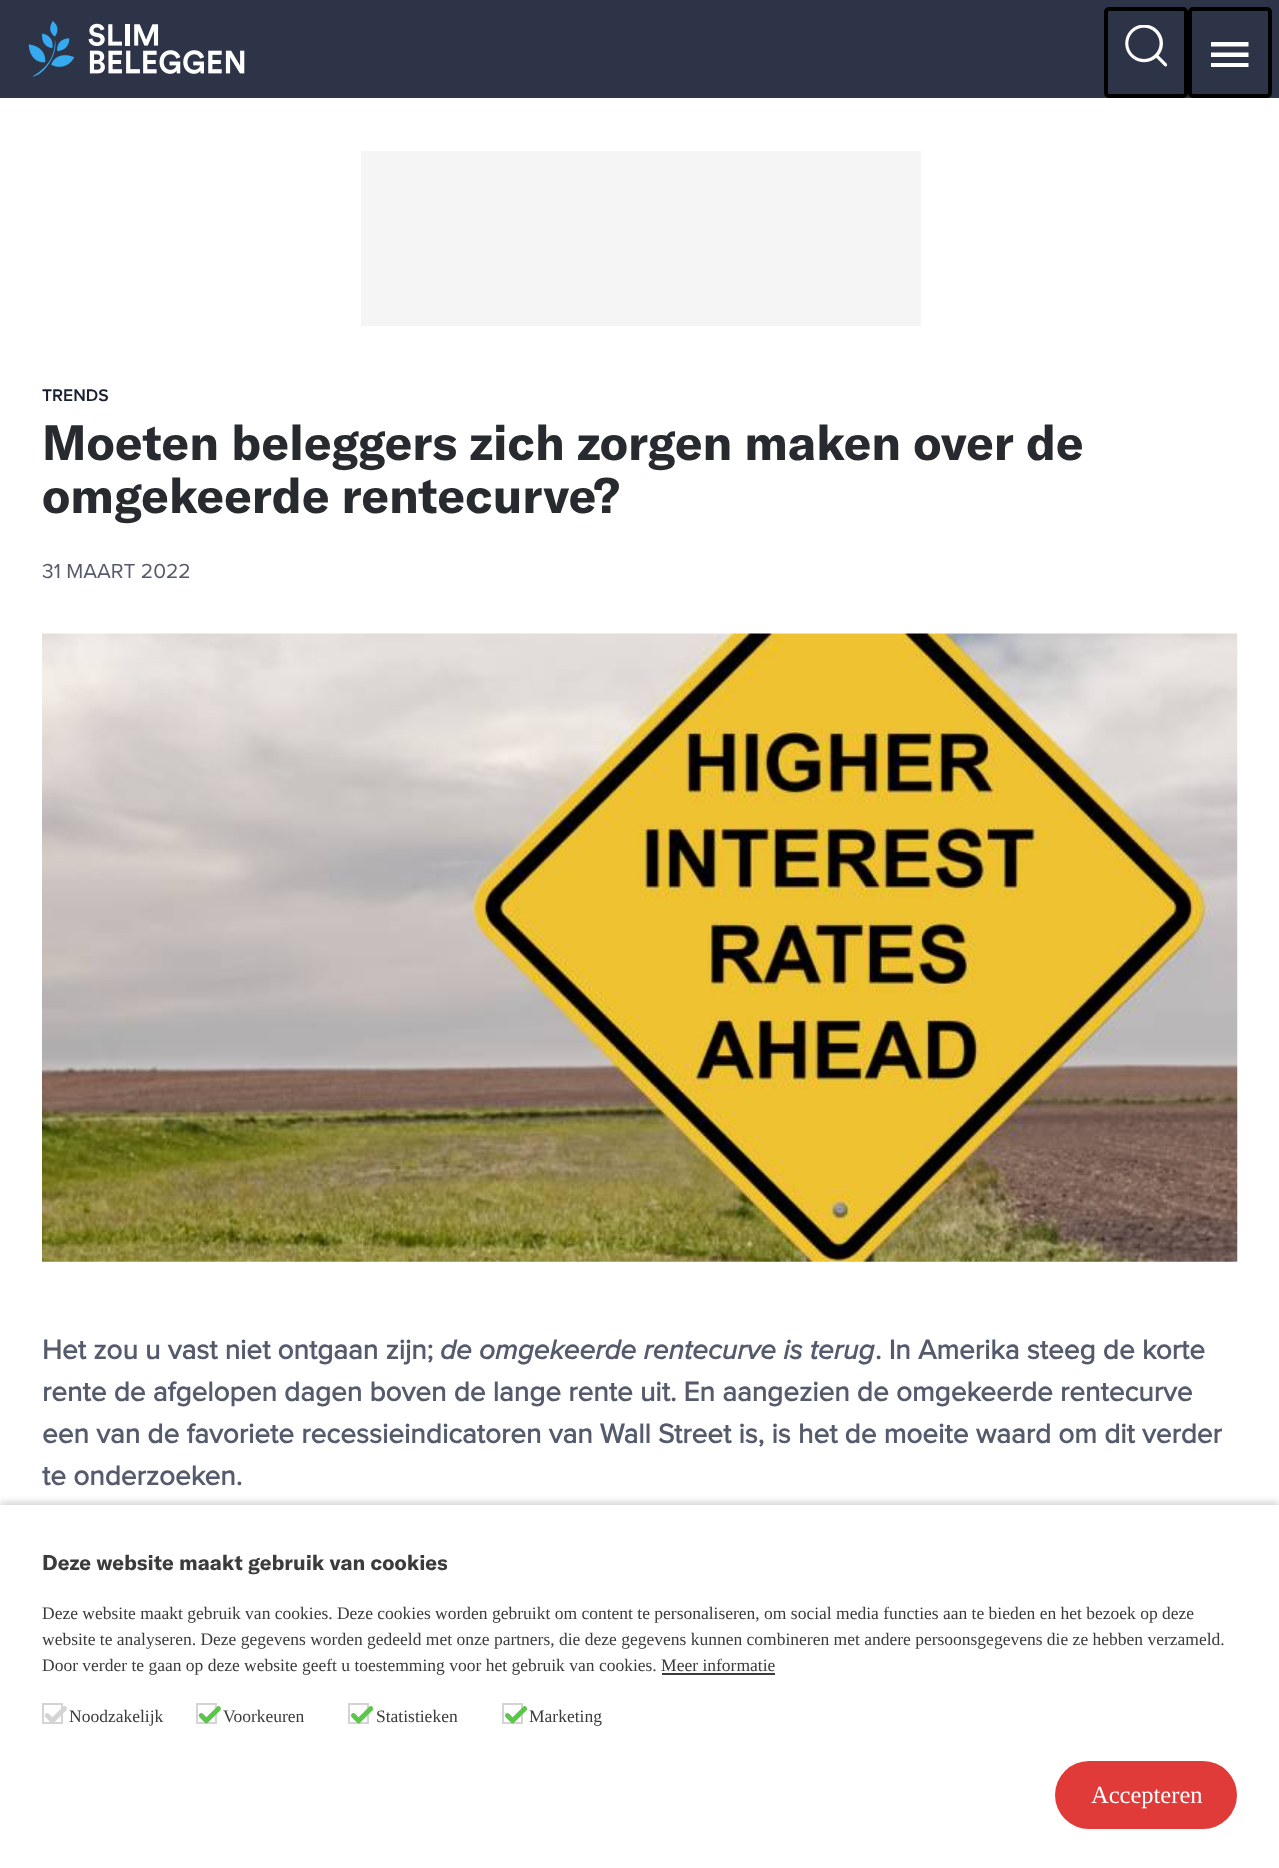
(async () => {
const canvas = document.querySelector("canvas")
canvas.width = 1279
canvas.height = 1868
const c = canvas.getContext("2d")
c.miterLimit = 4
c.fontKerning = "normal"
function T(s,x,y){c.fillText(s,x,y)}
function R(x,y,w,h){c.fillRect(x,y,w,h)}
function Q(x,y,w,h,r){c.beginPath();c.roundRect(x,y,w,h,r);c.fill()}
async function I(src,x,y,w,h){const img=new Image();img.src=src;await img.decode();c.drawImage(img,x,y,w,h)}
let path
c.fillStyle="#fff"
R(0,0,1279,1868)
c.fillStyle="#2e3447"
R(0,0,1279,98)
await I("1.png",28,21,217,56)
c.beginPath()
c.roundRect(1106,9,80,87,3)
c.strokeStyle="#000"
c.lineWidth=4
c.stroke()
await I("2.png",1125,25,42,42)
c.beginPath()
c.roundRect(1190,9,80,87,3)
c.stroke()
c.fillStyle="#fff"
path = new Path2D("M1211 67h37.5v-4h-37.5zm0-10h37.5v-4.5h-37.5zm0-15v4.5h37.5v-4.5z")
c.fill(path)
c.fillStyle="#f5f5f5"
R(361,151,560,175)
c.font="600 17.5px Proxima Nova"
c.fillStyle="#191f31"
T("TRENDS",42,401)
c.font="bold 49px GT America"
c.fillStyle="#272a2f"
T("Moeten beleggers zich zorgen maken over de",42,460)
T("omgekeerde rentecurve?",42,513)
c.font="21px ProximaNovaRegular"
c.fillStyle="#555b6c"
T("31 MAART 2022",42,578)
await I("3.png",42,633,1196,629)
c.font="bold 28px ProximaNovaRegular"
T("Het zou u vast niet ontgaan zijn;",42,1359)
c.font="italic bold 28px ProximaNovaRegular"
T("de omgekeerde rentecurve is terug",440,1359)
c.font="bold 28px ProximaNovaRegular"
T(". In Amerika steeg de korte",875,1359)
T("rente de afgelopen dagen boven de lange rente uit. En aangezien de omgekeerde rentecurve",42,1401)
T("een van de favoriete recessieindicatoren van Wall Street is, is het de moeite waard om dit verder",42,1443)
T("te onderzoeken.",42,1485)
c.fillStyle="#d4d4d4"
c.filter="blur(3.5px)"
c.beginPath()
c.rect(0,1502,1279,364)
c.fill()
c.filter="none"
c.fillStyle="#fff"
R(0,1505,1279,363)
c.font="bold 21px GT America"
c.fillStyle="#3b3b3b"
T("Deze website maakt gebruik van cookies",42,1570)
c.font="17.5px Liberation Serif"
T("Deze website maakt gebruik van cookies. Deze cookies worden gebruikt om content te personaliseren, om social media functies aan te bieden en het bezoek op deze",42,1619)
T("website te analyseren. Deze gegevens worden gedeeld met onze partners, die deze gegevens kunnen combineren met andere persoonsgegevens die ze hebben verzameld.",42,1645)
T("Door verder te gaan op deze website geeft u toestemming voor het gebruik van cookies. Meer informatie",42,1671)
R(662,1673,113,2)
c.strokeStyle="#d4d4d4"
c.lineWidth=2
c.strokeRect(43,1704,19,19)
await I("4.png",44,1706,23,16)
T("Noodzakelijk",69,1722)
c.strokeRect(197,1704,19,19)
await I("5.png",198,1706,23,18)
T("Voorkeuren",223,1722)
c.strokeRect(349,1704,19,19)
await I("6.png",350,1706,24,18)
T("Statistieken",376,1722)
c.strokeRect(503,1704,19,19)
await I("6.png",504,1706,24,18)
T("Marketing",529,1722)
c.fillStyle="#e03a39"
Q(1055,1761,182,68,34)
c.font="24.5px Liberation Serif"
c.fillStyle="#fff"
T("Accepteren",1091,1803)
})()
